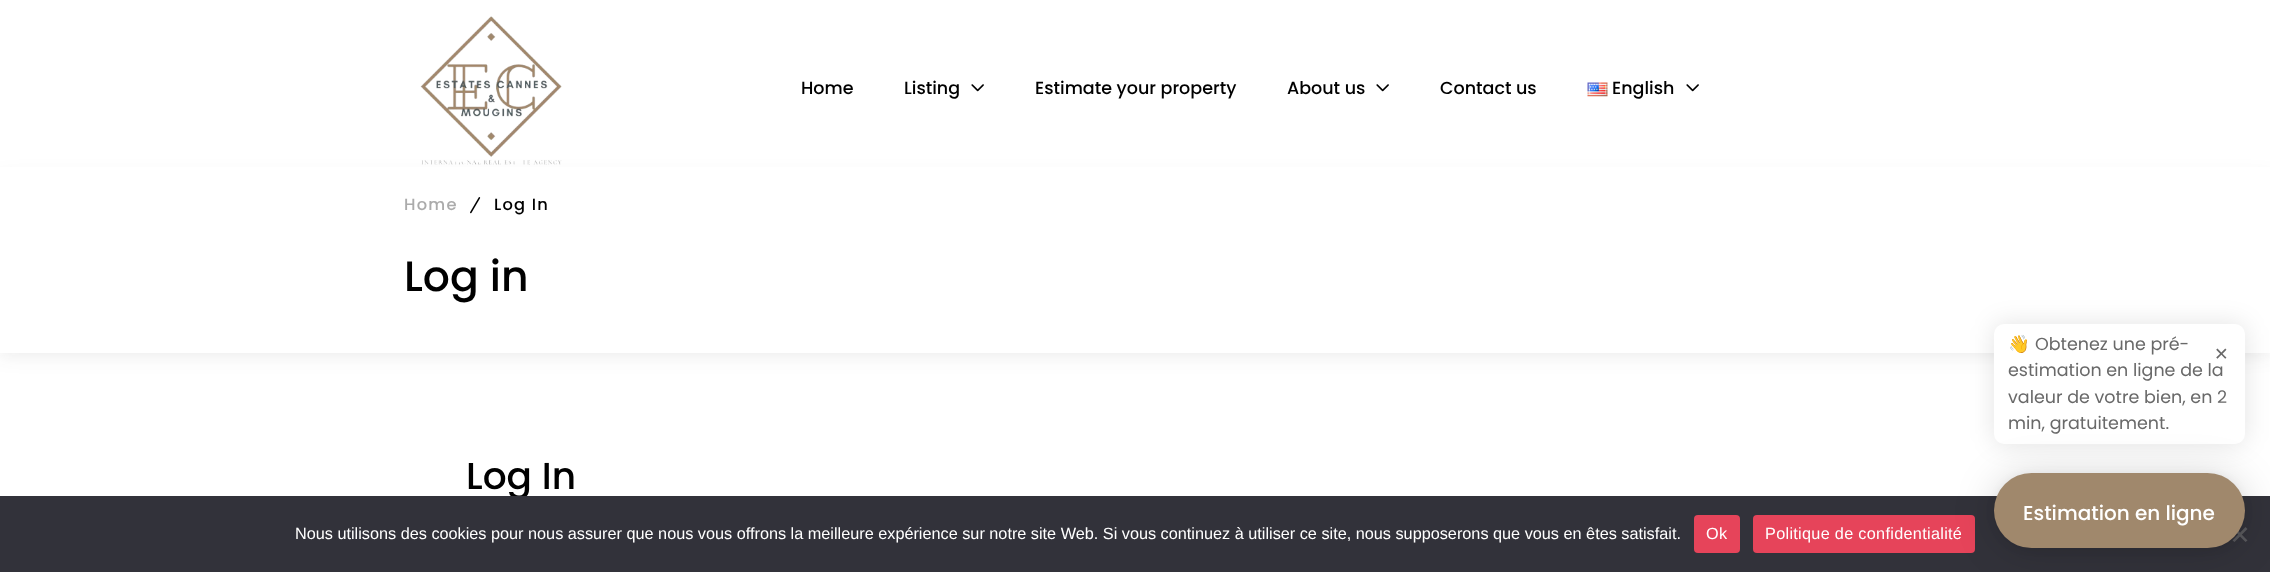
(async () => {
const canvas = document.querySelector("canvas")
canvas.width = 2270
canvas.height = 572
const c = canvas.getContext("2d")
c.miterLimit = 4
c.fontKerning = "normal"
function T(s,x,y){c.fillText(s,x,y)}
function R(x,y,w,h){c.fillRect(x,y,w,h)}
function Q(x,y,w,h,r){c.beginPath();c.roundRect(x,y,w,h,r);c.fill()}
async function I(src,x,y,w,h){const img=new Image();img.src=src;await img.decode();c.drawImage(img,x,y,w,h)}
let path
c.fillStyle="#fff"
R(0,0,2270,572)
c.save()
path = new Path2D("M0 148h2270v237h-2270zm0 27h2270v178h-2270z")
c.clip(path,"evenodd")
c.fillStyle="#3333331a"
c.filter="blur(9.5px)"
c.beginPath()
c.rect(0,178,2270,177)
c.fill()
c.filter="none"
c.restore()
R(0,167,2270,8)
await I("1.png",420,16,142,149)
c.font="500 17.5px Poppins"
c.fillStyle="#000"
T("Home",801,94)
T("Listing",904,94)
await I("2.png",971,84,13,8)
T("Estimate your property",1035,94)
T("About us",1287,94)
await I("2.png",1376,84,13,8)
T("Contact us",1440,94)
await I("3.png",1587,82,21,15)
T("English",1612,94)
await I("2.png",1686,84,13,8)
c.letterSpacing="1.25px"
c.font="500 16.25px Poppins"
c.fillStyle="#ababab"
T("Home",404,210)
await I("4.png",470,197,11,17)
c.fillStyle="#000"
T("Log In",494,210)
c.letterSpacing="0px"
c.font="500 42.5px Poppins"
T("Log in",404,291)
c.font="500 37.5px Poppins"
T("Log In",466,489)
c.fillStyle="#0000001a"
c.filter="blur(12.5px)"
c.beginPath()
c.roundRect(1993,323,253,122,11)
c.fill()
c.filter="none"
c.fillStyle="#fff"
Q(1994,324,251,120,10)
c.font="17.5px Noto Color Emoji"
c.fillStyle="#696969"
T("👋",2008,350)
c.font="17.5px Poppins"
T("Obtenez une pré-",2035,350)
T("estimation en ligne de la",2008,376)
T("valeur de votre bien, en 2",2008,403)
T("min, gratuitement.",2008,429)
c.font="17.5px DejaVu Sans"
T("✕",2214,360)
c.fillStyle="#32323a"
R(0,496,2270,76)
c.fillStyle="#e6445a"
Q(1753,515,222,38,4)
c.fillStyle="#59595d"
path = new Path2D("M2245.5 527l2 2l-13 13l-2-1.5z")
c.fill(path)
path = new Path2D("M2232.5 529l2-2l13 13.5l-2 1.5z")
c.fill(path)
c.fillStyle="#00000029"
c.filter="blur(20px)"
c.beginPath()
c.roundRect(1994,475,251,75,37.5)
c.fill()
c.filter="none"
c.fillStyle="#0000000f"
c.filter="blur(4px)"
c.beginPath()
c.roundRect(1994,474,251,75,37.5)
c.fill()
c.filter="none"
c.fillStyle="#a0886c"
Q(1994,473,251,75,37.5)
c.font="500 20px Poppins"
c.fillStyle="#fff"
T("Estimation en ligne",2023,520)
c.font="16.25px Liberation Sans"
T("Nous utilisons des cookies pour nous assurer que nous vous offrons la meilleure expérience sur notre site Web. Si vous continuez à utiliser ce site, nous supposerons que vous en êtes satisfait.",295,539)
c.fillStyle="#e6445a"
Q(1694,515,46,38,4)
c.letterSpacing="0.3px"
c.fillStyle="#fff"
T("Ok",1706,539)
T("Politique de confidentialité",1765,539)
})()
